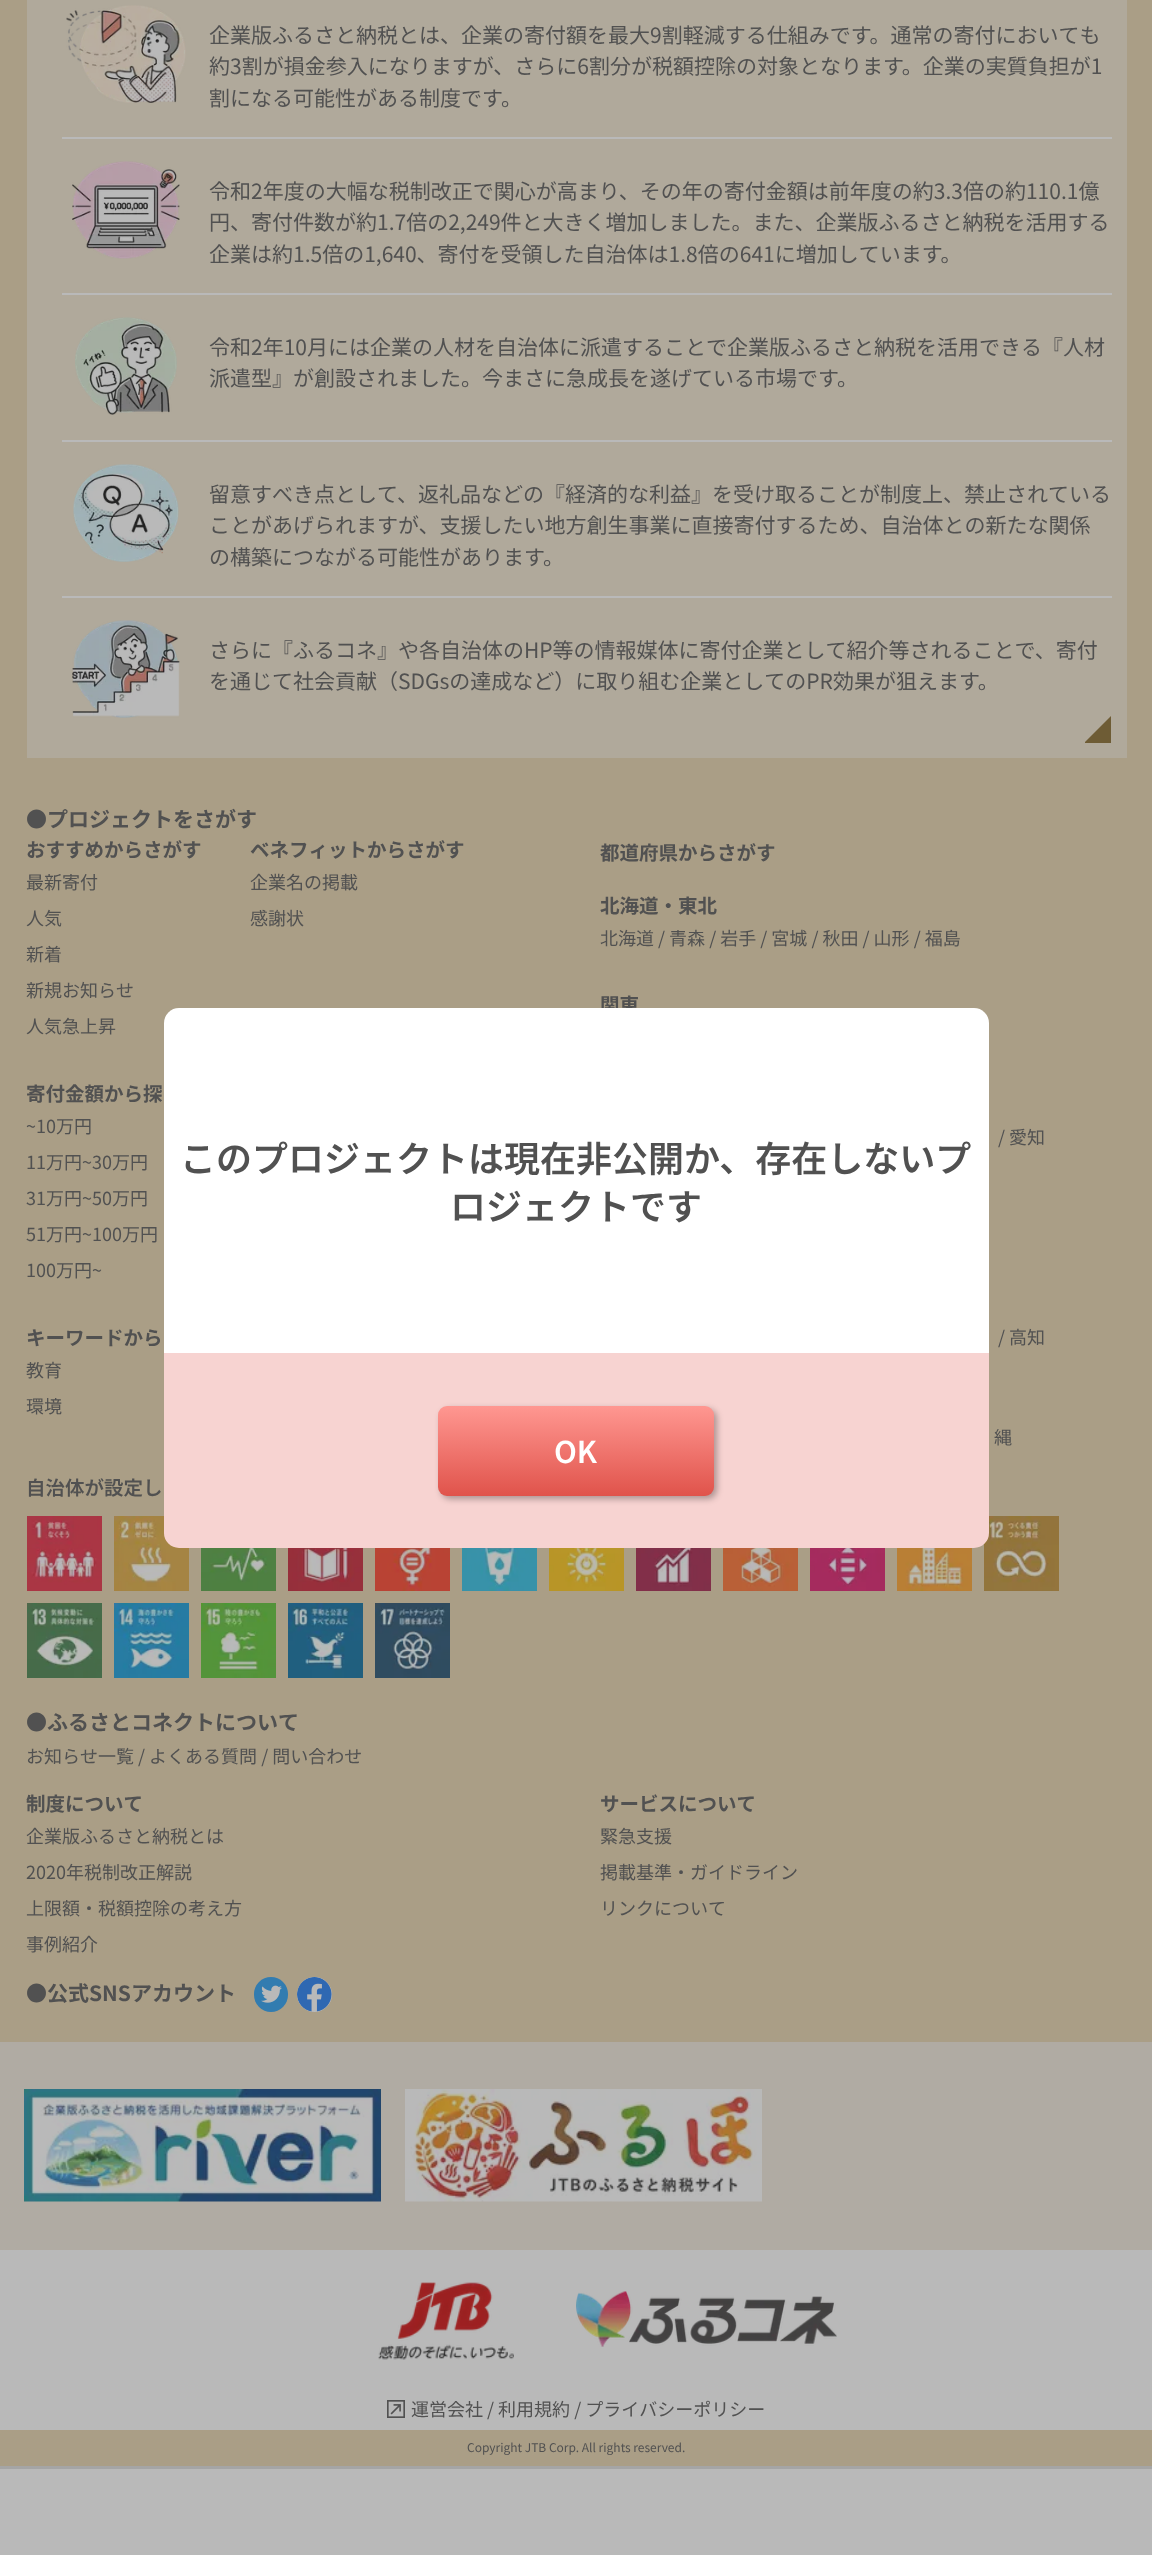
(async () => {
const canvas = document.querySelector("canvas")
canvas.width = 1152
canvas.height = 2555
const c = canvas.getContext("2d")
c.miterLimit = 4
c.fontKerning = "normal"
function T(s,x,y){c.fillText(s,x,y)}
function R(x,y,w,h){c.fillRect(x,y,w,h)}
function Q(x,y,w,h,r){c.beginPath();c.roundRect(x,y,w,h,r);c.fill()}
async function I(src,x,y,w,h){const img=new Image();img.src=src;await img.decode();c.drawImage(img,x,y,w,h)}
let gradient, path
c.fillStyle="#b0aba3"
R(0,0,1152,2555)
c.fillStyle="#aa9e86"
R(0,0,1152,2042)
c.fillStyle="#b0a99b"
R(27,0,1100,758)
c.fillStyle="#b9b9b9"
R(62,137,1050,2)
await I("1.png",66,5,120,98)
c.font="21px Noto Sans JP"
c.fillStyle="#515151"
T("企業版ふるさと納税とは、企業の寄付額を最大9割軽減する仕組みです。通常の寄付においても",209,43)
T("約3割が損金参入になりますが、さらに6割分が税額控除の対象となります。企業の実質負担が1",209,74)
T("割になる可能性がある制度です。",209,106)
c.fillStyle="#b9b9b9"
R(62,293,1050,2)
await I("2.png",72,161,108,98)
c.fillStyle="#515151"
T("令和2年度の大幅な税制改正で関心が高まり、その年の寄付金額は前年度の約3.3倍の約110.1億",209,199)
T("円、寄付件数が約1.7倍の2,249件と大きく増加しました。また、企業版ふるさと納税を活用する",209,230)
T("企業は約1.5倍の1,640、寄付を受領した自治体は1.8倍の641に増加しています。",209,262)
c.fillStyle="#b9b9b9"
R(62,440,1050,2)
await I("3.png",75,317,102,98)
c.fillStyle="#515151"
T("令和2年10月には企業の人材を自治体に派遣することで企業版ふるさと納税を活用できる『人材",209,355)
T("派遣型』が創設されました。今まさに急成長を遂げている市場です。",209,386)
c.fillStyle="#b9b9b9"
R(62,596,1050,2)
await I("4.png",73,464,106,98)
c.fillStyle="#515151"
T("留意すべき点として、返礼品などの『経済的な利益』を受け取ることが制度上、禁止されている",209,502)
T("ことがあげられますが、支援したい地方創生事業に直接寄付するため、自治体との新たな関係",209,533)
T("の構築につながる可能性があります。",209,565)
await I("5.png",72,620,108,98)
T("さらに『ふるコネ』や各自治体のHP等の情報媒体に寄付企業として紹介等されることで、寄付",209,658)
T("を通じて社会貢献（SDGsの達成など）に取り組む企業としてのPR効果が狙えます。",209,689)
c.fillStyle="#6e5c35"
path = new Path2D("M1111 743h-26v-1l26-26z")
c.fill(path)
c.font="bold 21px Noto Sans JP"
c.fillStyle="#515151"
T("●プロジェクトをさがす",26,827)
c.font="bold 19.5px Noto Sans JP"
T("おすすめからさがす",26,857)
c.font="18px Noto Sans JP"
T("最新寄付",26,889)
T("人気",26,925)
T("新着",26,961)
T("新規お知らせ",26,997)
T("人気急上昇",26,1033)
c.font="bold 19.5px Noto Sans JP"
T("ベネフィットからさがす",250,857)
c.font="18px Noto Sans JP"
T("企業名の掲載",250,889)
T("感謝状",250,925)
c.font="bold 19.5px Noto Sans JP"
T("寄付金額から探",26,1101)
c.font="18px Noto Sans JP"
T("~10万円",26,1133)
T("11万円~30万円",26,1169)
T("31万円~50万円",26,1205)
T("51万円~100万円",26,1241)
T("100万円~",26,1277)
c.font="bold 19.5px Noto Sans JP"
T("キーワードから",26,1345)
c.font="18px Noto Sans JP"
T("教育",26,1377)
T("環境",26,1413)
c.font="bold 19.5px Noto Sans JP"
T("都道府県からさがす",600,860)
T("北海道・東北",600,913)
c.font="18px Noto Sans JP"
T("北海道 / 青森 / 岩手 / 宮城 / 秋田 / 山形 / 福島",600,945)
c.font="bold 19.5px Noto Sans JP"
T("関東",600,1012)
c.font="18px Noto Sans JP"
T("/ 愛知",998,1144)
T("/ 高知",998,1344)
T("縄",994,1444)
c.font="600 19.5px Noto Sans JP"
T("自治体が設定し",26,1495)
await I("6.png",27,1516,75,75)
await I("7.png",114,1516,75,75)
await I("8.png",201,1548,75,43)
await I("9.png",288,1548,75,43)
await I("10.png",375,1548,75,43)
await I("11.png",462,1548,75,43)
await I("12.png",549,1548,75,43)
await I("13.png",636,1548,75,43)
await I("14.png",723,1548,75,43)
await I("15.png",810,1548,75,43)
await I("16.png",897,1548,75,43)
await I("17.png",984,1516,75,75)
await I("18.png",27,1603,75,75)
await I("19.png",114,1603,75,75)
await I("20.png",201,1603,75,75)
await I("21.png",288,1603,75,75)
await I("22.png",375,1603,75,75)
c.font="bold 21px Noto Sans JP"
T("●ふるさとコネクトについて",26,1730)
c.font="18px Noto Sans JP"
T("お知らせ一覧 / よくある質問 / 問い合わせ",26,1763)
c.font="bold 19.5px Noto Sans JP"
T("制度について",26,1811)
c.font="18px Noto Sans JP"
T("企業版ふるさと納税とは",26,1843)
T("2020年税制改正解説",26,1879)
T("上限額・税額控除の考え方",26,1915)
T("事例紹介",26,1951)
c.font="bold 19.5px Noto Sans JP"
T("サービスについて",600,1811)
c.font="18px Noto Sans JP"
T("緊急支援",600,1843)
T("掲載基準・ガイドライン",600,1879)
T("リンクについて",600,1915)
c.font="bold 21px Noto Sans JP"
T("●公式SNSアカウント",26,2001)
c.fillStyle="#327cb0"
Q(254,1977,34,35,17)
await I("23.png",261,1985,21,18)
c.fillStyle="#b9b9b9"
c.beginPath()
c.arc(314.5,1994.5,17.5,0,7)
c.fill()
await I("24.png",297,1977,35,35)
await I("25.png",24,2089,357,113)
await I("26.png",405,2089,357,113)
R(0,2250,1152,180)
await I("27.png",378,2282,136,78)
await I("28.png",576,2291,261,56)
await I("29.png",387,2400,18,18)
c.font="18px Noto Sans JP"
c.fillStyle="#515151"
T("運営会社 / 利用規約 / プライバシーポリシー",411,2416)
c.fillStyle="#aa9e86"
R(0,2430,1152,36)
c.font="12px Noto Sans JP"
c.fillStyle="#515151"
T("Copyright JTB Corp. All rights reserved.",467,2452)
c.fillStyle="#fff"
c.beginPath()
c.roundRect(164,1008,825,345,[15,15,0,0])
c.fill()
c.font="600 36px Noto Sans JP"
c.fillStyle="#515151"
T("このプロジェクトは現在非公開か、存在しないプ",180,1172)
T("ロジェクトです",450,1220)
c.fillStyle="#f7d3d1"
c.beginPath()
c.roundRect(164,1353,825,195,[0,0,15,15])
c.fill()
c.fillStyle="#0000004d"
c.filter="blur(3px)"
c.beginPath()
c.roundRect(441,1409,276,90,9)
c.fill()
c.filter="none"
gradient = c.createLinearGradient(576,1406,576,1496)
gradient.addColorStop(0,"#ff9791")
gradient.addColorStop(1,"#e0534b")
c.fillStyle = gradient
Q(438,1406,276,90,9)
c.font="600 30px Noto Sans JP"
c.fillStyle="#fff"
T("OK",554,1463)
c.fillStyle="#b9b9b9"
R(0,2469,1152,86)
c.fillStyle="#a5a5a5"
R(0,2466,1152,3)
})()
